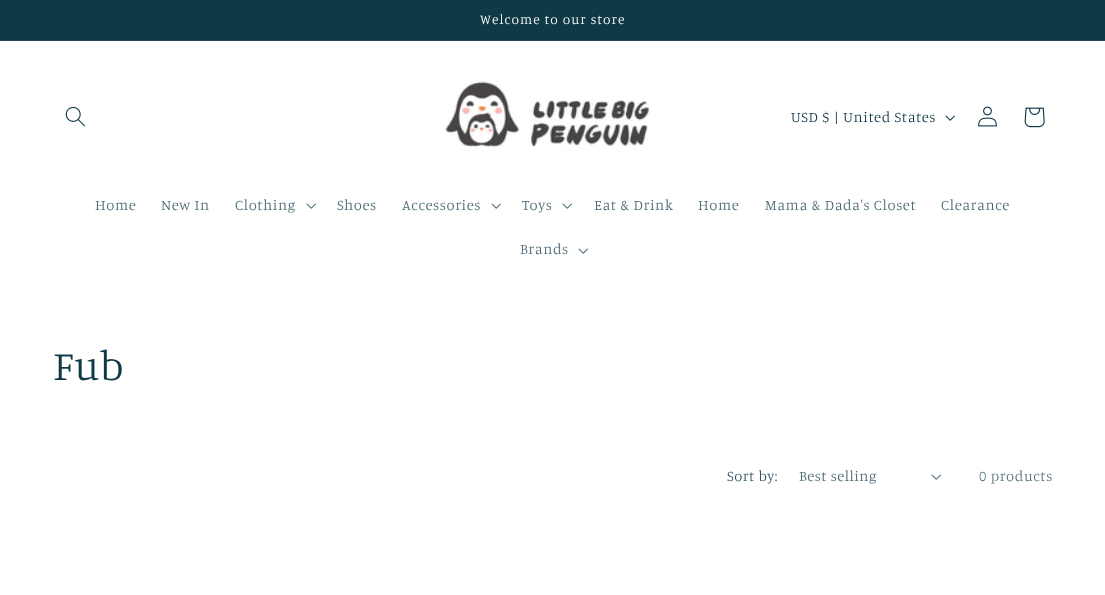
(async () => {
const canvas = document.querySelector("canvas")
canvas.width = 1105
canvas.height = 595
const c = canvas.getContext("2d")
c.miterLimit = 4
c.fontKerning = "normal"
function T(s,x,y){c.fillText(s,x,y)}
function R(x,y,w,h){c.fillRect(x,y,w,h)}
async function I(src,x,y,w,h){const img=new Image();img.src=src;await img.decode();c.drawImage(img,x,y,w,h)}
c.fillStyle="#fff"
R(0,0,1105,595)
c.fillStyle="#103948"
R(0,0,1105,40)
c.fillStyle="#234956"
R(0,40,1105,1)
c.letterSpacing="1.05px"
c.font="300 13.6px Manuale"
c.fillStyle="#fcfcfc"
T("Welcome to our store",480,24)
await I("1.png",65,106,20,21)
await I("2.png",445,79,204,72)
c.letterSpacing="0.6px"
c.font="300 14.75px Manuale"
c.fillStyle="#103948"
T("USD $ | United States",791,122)
await I("3.png",945,115,10,6)
await I("4.png",978,106,19,21)
await I("5.png",1024,107,21,21)
c.fillStyle="#4c6b76"
T("Home",95,210)
T("New In",161,210)
T("Clothing",235,210)
await I("6.png",306,203,10,6)
T("Shoes",337,210)
T("Accessories",402,210)
await I("6.png",491,203,10,6)
T("Toys",522,210)
await I("6.png",562,203,10,6)
T("Eat & Drink",594,210)
T("Home",698,210)
T("Mama & Dada's Closet",765,210)
T("Clearance",941,210)
T("Brands",520,254)
await I("6.png",578,248,10,6)
c.font="300 42px Manuale"
c.fillStyle="#103948"
T("Fub",53,380)
c.letterSpacing="0.5px"
c.font="300 14.75px Manuale"
c.fillStyle="#345763"
T("Sort by:",727,481)
c.fillStyle="#4c6b76"
T("Best selling",799,481)
await I("6.png",931,474,10,6)
c.letterSpacing="0.6px"
c.fillStyle="#58747f"
T("0 products",979,481)
})()
